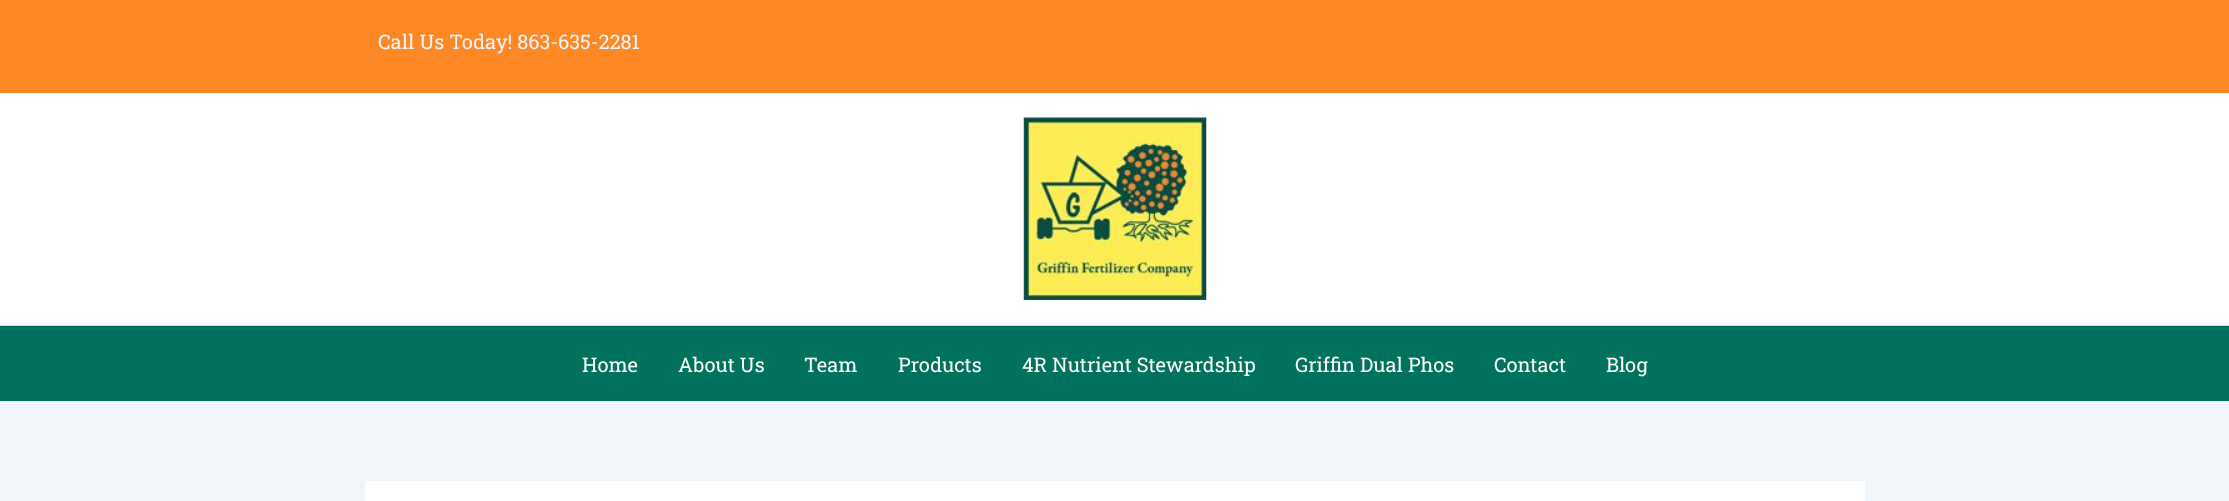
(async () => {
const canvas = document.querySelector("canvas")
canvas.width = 2229
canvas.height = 501
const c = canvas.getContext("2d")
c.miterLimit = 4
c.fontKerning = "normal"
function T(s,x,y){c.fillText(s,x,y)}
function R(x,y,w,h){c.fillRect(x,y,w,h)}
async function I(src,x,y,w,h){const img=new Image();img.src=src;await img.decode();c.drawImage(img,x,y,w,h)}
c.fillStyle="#f0f5fa"
R(0,0,2229,501)
c.fillStyle="#ff8826"
R(0,0,2229,93)
c.font="20px Roboto Slab"
c.fillStyle="#f0f5fa"
T("Call Us Today! 863-635-2281",378,49)
c.fillStyle="#fff"
R(0,93,2229,232)
c.fillStyle="#d1d5db"
R(0,325,2229,1)
await I("1.png",1023,117,184,183)
c.fillStyle="#00725d"
R(0,326,2229,75)
c.fillStyle="#fff"
T("Home",582,372)
T("About Us",678,372)
T("Team",804,372)
T("Products",898,372)
T("4R Nutrient Stewardship",1022,372)
T("Griffin Dual Phos",1295,372)
T("Contact",1494,372)
T("Blog",1606,372)
R(365,481,1500,20)
})()
